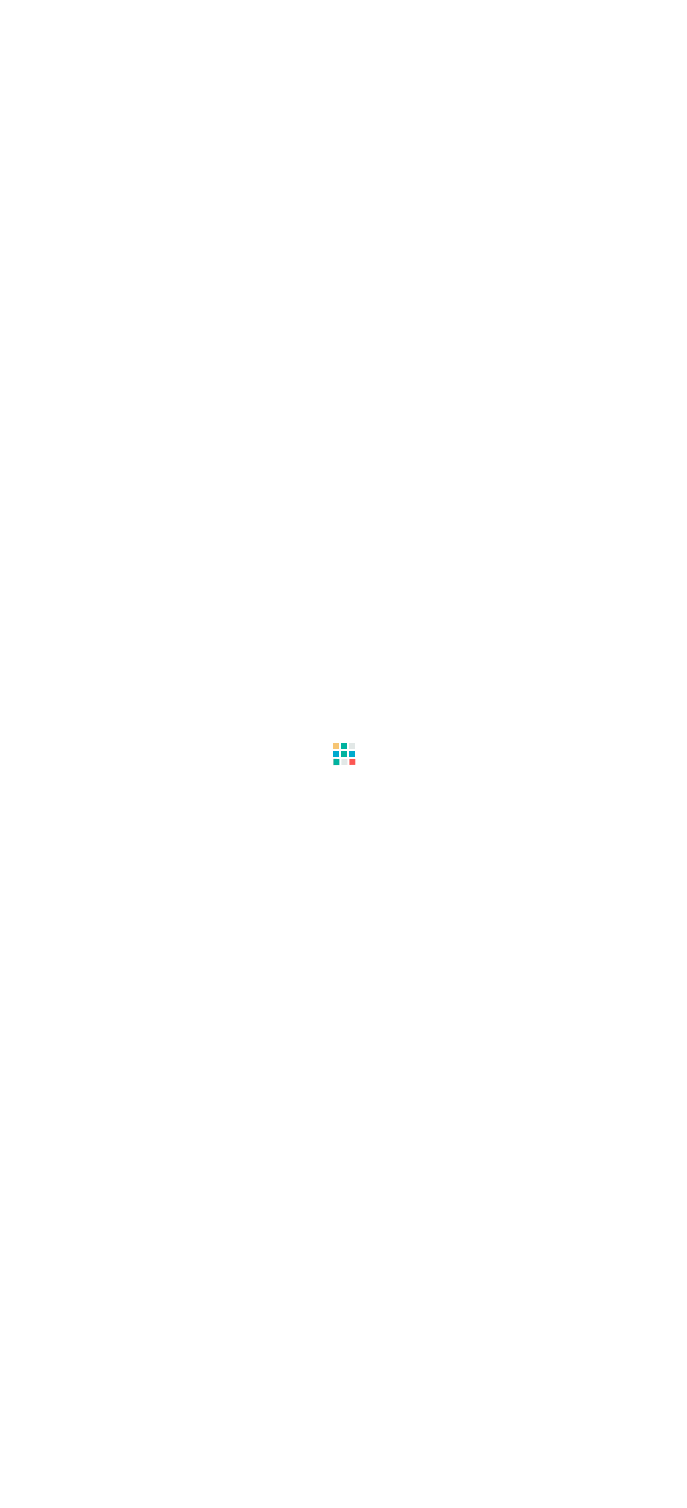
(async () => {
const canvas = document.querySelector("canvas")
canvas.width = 687
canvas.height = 1508
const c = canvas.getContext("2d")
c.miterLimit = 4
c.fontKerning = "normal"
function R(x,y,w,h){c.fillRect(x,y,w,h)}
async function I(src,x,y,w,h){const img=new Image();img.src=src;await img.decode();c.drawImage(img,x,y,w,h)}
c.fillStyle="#fff"
R(0,0,687,1508)
await I("1.png",333,743,23,23)
})()
